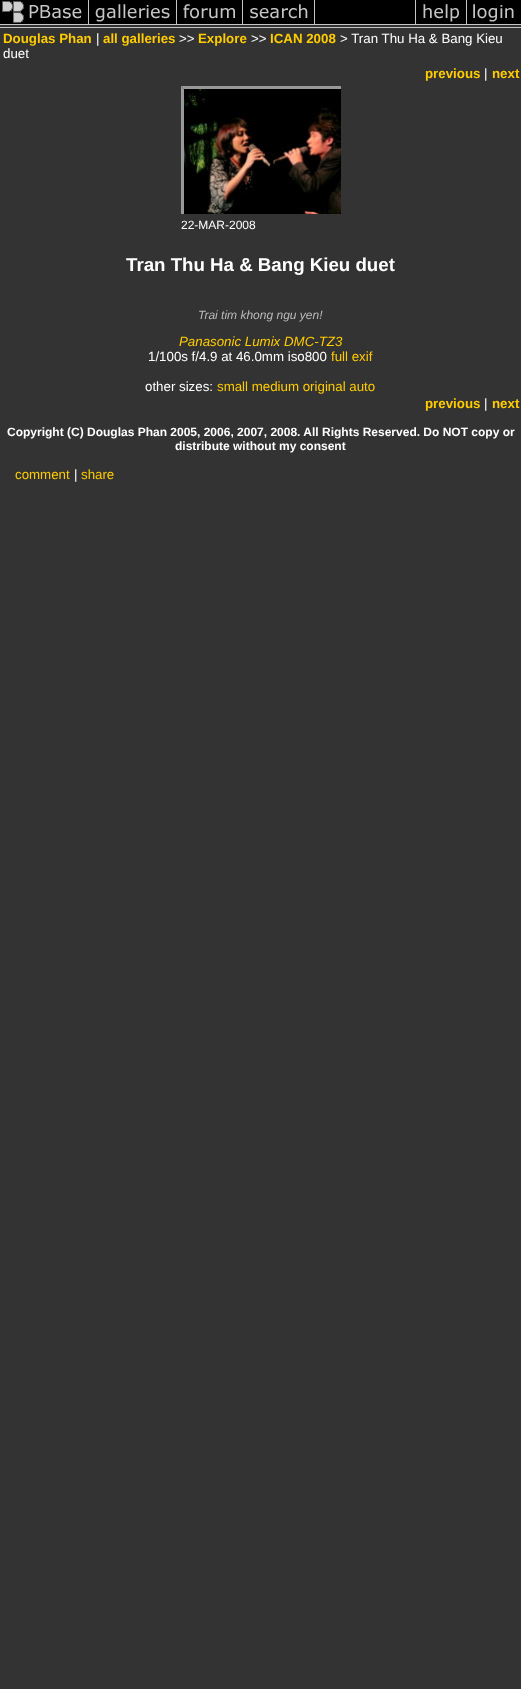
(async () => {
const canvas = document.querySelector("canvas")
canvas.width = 521
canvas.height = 1689
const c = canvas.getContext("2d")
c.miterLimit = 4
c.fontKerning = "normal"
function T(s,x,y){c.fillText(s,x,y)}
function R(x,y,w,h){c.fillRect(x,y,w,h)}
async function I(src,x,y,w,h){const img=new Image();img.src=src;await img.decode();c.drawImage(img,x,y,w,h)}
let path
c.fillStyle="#333"
R(0,0,521,1689)
await I("1.png",0,0,89,28)
await I("2.png",89,0,88,28)
await I("3.png",177,0,66,28)
await I("4.png",243,0,72,28)
await I("5.png",315,0,100,28)
await I("6.png",415,0,52,28)
await I("7.png",467,0,54,28)
c.font="bold 13.3px Liberation Sans"
c.fillStyle="#fc0"
T("Douglas Phan",3,43)
c.font="13.3px Liberation Sans"
c.fillStyle="#fff"
T("|",96,43)
c.font="bold 13.3px Liberation Sans"
c.fillStyle="#fc0"
T("all galleries",103,43)
c.font="13.3px Liberation Sans"
c.fillStyle="#fff"
T(">>",179,43)
c.font="bold 13.3px Liberation Sans"
c.fillStyle="#fc0"
T("Explore",198,43)
c.font="13.3px Liberation Sans"
c.fillStyle="#fff"
T(">>",251,43)
c.font="bold 13.3px Liberation Sans"
c.fillStyle="#fc0"
T("ICAN 2008",270,43)
c.font="13.3px Liberation Sans"
c.fillStyle="#fff"
T("> Tran Thu Ha & Bang Kieu",340,43)
T("duet",3,58)
c.font="bold 13.3px Liberation Sans"
c.fillStyle="#fc0"
T("previous",425,78)
c.font="13.3px Liberation Sans"
c.fillStyle="#fff"
T("|",484,78)
c.font="bold 13.3px Liberation Sans"
c.fillStyle="#fc0"
T("next",492,78)
c.save()
c.beginPath()
c.rect(181,86,160,128)
c.clip()
c.fillStyle="#999"
path = new Path2D("M181 86h164l-3 3h-158z")
c.fill(path)
path = new Path2D("M181 219v-133l3 3v127z")
c.fill(path)
c.restore()
await I("8.png",184,89,157,125)
c.font="12px Liberation Sans"
c.fillStyle="#fff"
T("22-MAR-2008",181,229)
c.font="bold 18.7px Liberation Sans"
T("Tran Thu Ha & Bang Kieu duet",126,271)
c.font="italic 12px Liberation Sans"
c.fillStyle="#bbb"
T("Trai tim khong ngu yen!",198,319)
c.font="italic 13.3px Liberation Sans"
c.fillStyle="#fc0"
T("Panasonic Lumix DMC-TZ3",179,346)
c.font="13.3px Liberation Sans"
c.fillStyle="#fff"
T("1/100s f/4.9 at 46.0mm iso800",148,361)
c.fillStyle="#fc0"
T("full exif",331,361)
c.fillStyle="#fff"
T("other sizes:",145,391)
c.fillStyle="#fc0"
T("small medium original auto",217,391)
c.font="bold 13.3px Liberation Sans"
T("previous",425,408)
c.font="13.3px Liberation Sans"
c.fillStyle="#fff"
T("|",484,408)
c.font="bold 13.3px Liberation Sans"
c.fillStyle="#fc0"
T("next",492,408)
c.font="bold 12px Liberation Sans"
c.fillStyle="#fff"
T("Copyright (C) Douglas Phan 2005, 2006, 2007, 2008. All Rights Reserved. Do NOT copy or",7,436)
T("distribute without my consent",175,450)
c.font="13.3px Liberation Sans"
c.fillStyle="#fc0"
T("comment",15,479)
c.fillStyle="#fff"
T("|",74,479)
c.fillStyle="#fc0"
T("share",81,479)
})()
